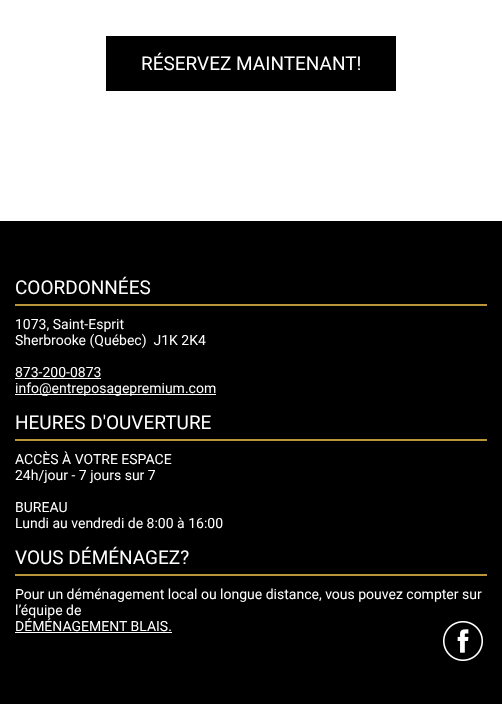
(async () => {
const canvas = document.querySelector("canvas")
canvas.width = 502
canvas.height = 706
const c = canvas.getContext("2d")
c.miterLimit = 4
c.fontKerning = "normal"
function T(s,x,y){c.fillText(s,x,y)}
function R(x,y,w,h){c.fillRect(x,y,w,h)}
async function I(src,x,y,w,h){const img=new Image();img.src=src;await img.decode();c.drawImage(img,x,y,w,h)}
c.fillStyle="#fff"
R(0,0,502,706)
c.fillStyle="#000"
R(106,36,290,55)
c.font="19px Roboto"
c.fillStyle="#fff"
T("RÉSERVEZ MAINTENANT!",141,70)
c.fillStyle="#000"
R(0,221,502,483)
c.fillStyle="#ba953a"
R(15,304,472,2)
c.fillStyle="#fff"
T("COORDONNÉES",15,294)
c.font="14px Roboto"
T("1073, Saint-Esprit",15,329)
T("Sherbrooke (Québec)  J1K 2K4",15,345)
T("873-200-0873",15,377)
R(15,378,86,1)
R(15,394,201,1)
T("info@entreposagepremium.com",15,393)
c.fillStyle="#ba953a"
R(15,439,472,2)
c.font="19px Roboto"
c.fillStyle="#fff"
T("HEURES D'OUVERTURE",15,429)
c.font="14px Roboto"
T("ACCÈS À VOTRE ESPACE",15,464)
T("24h/jour - 7 jours sur 7",15,480)
T("BUREAU",15,512)
T("Lundi au vendredi de 8:00 à 16:00",15,528)
c.fillStyle="#ba953a"
R(15,574,472,2)
c.font="19px Roboto"
c.fillStyle="#fff"
T("VOUS DÉMÉNAGEZ?",15,564)
c.font="14px Roboto"
T("Pour un déménagement local ou longue distance, vous pouvez compter sur",15,599)
T("l’équipe de",15,615)
T("DÉMÉNAGEMENT BLAIS.",15,631)
R(15,632,157,1)
await I("1.png",443,621,40,40)
})()
